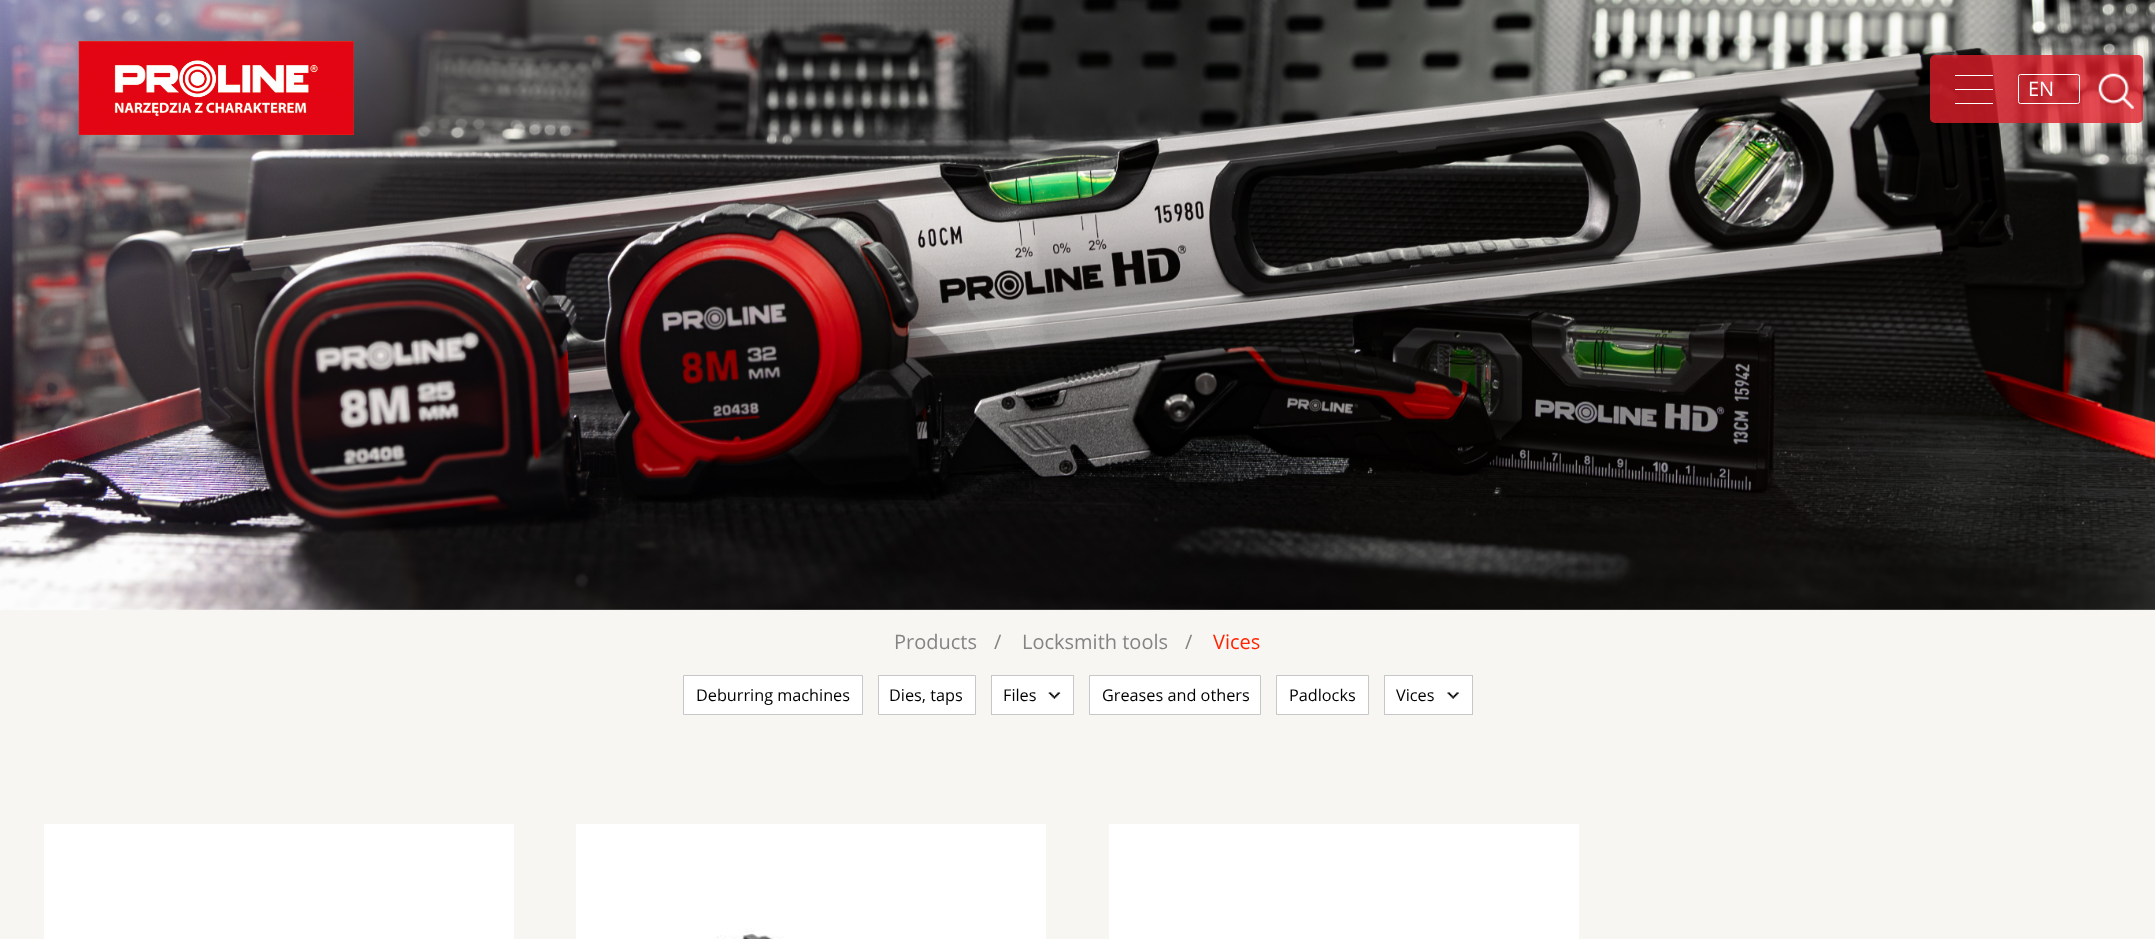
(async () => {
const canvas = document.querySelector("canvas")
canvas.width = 2155
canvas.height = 939
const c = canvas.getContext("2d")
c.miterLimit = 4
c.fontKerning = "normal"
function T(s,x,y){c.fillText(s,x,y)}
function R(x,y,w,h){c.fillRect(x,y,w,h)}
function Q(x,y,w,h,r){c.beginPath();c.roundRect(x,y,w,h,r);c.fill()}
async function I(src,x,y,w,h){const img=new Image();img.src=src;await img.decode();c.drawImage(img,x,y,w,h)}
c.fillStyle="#fff"
R(0,0,2155,939)
await I("3.png",0,0,2155,610)
await I("1.png",78,41,276,94)
c.fillStyle="#df1e29cc"
Q(1930,55,213,68,5)
c.fillStyle="#fff"
R(1955,75,38,1)
R(1955,89,38,1)
R(1955,103,38,1)
c.beginPath()
c.roundRect(2018.5,74.5,61,29,2)
c.strokeStyle="#fff"
c.stroke()
c.font="20px Open Sans"
T("EN",2028,96)
await I("2.png",2098,73,36,36)
c.fillStyle="#f7f6f3"
R(0,610,2155,329)
c.fillStyle="#848484"
T("Products",894,649)
T("/",994,649)
T("Locksmith tools",1022,649)
T("/",1185,649)
c.fillStyle="#ff2400"
T("Vices",1213,649)
c.fillStyle="#fff"
c.beginPath()
c.rect(683.5,675.5,179,39)
c.fill()
c.strokeStyle="#c7c7c7"
c.stroke()
c.font="16.25px Open Sans"
c.fillStyle="#000"
T("Deburring machines",696,701)
c.fillStyle="#fff"
c.beginPath()
c.rect(878.5,675.5,97,39)
c.fill()
c.stroke()
c.fillStyle="#000"
T("Dies, taps",889,701)
c.fillStyle="#fff"
R(992,676,81,38)
await I("4.png",1048,692,13,7)
c.strokeRect(991.5,675.5,82,39)
c.fillStyle="#000"
T("Files",1003,701)
c.fillStyle="#fff"
c.beginPath()
c.rect(1089.5,675.5,171,39)
c.fill()
c.stroke()
c.fillStyle="#000"
T("Greases and others",1102,701)
c.fillStyle="#fff"
c.beginPath()
c.rect(1276.5,675.5,92,39)
c.fill()
c.stroke()
c.fillStyle="#000"
T("Padlocks",1289,701)
c.fillStyle="#fff"
R(1385,676,87,38)
await I("5.png",1447,692,12,7)
c.strokeRect(1384.5,675.5,88,39)
c.fillStyle="#000"
T("Vices",1396,701)
c.fillStyle="#fff"
R(44,824,470,115)
R(576,824,470,115)
await I("6.png",716,928,68,11)
R(1109,824,470,115)
})()
